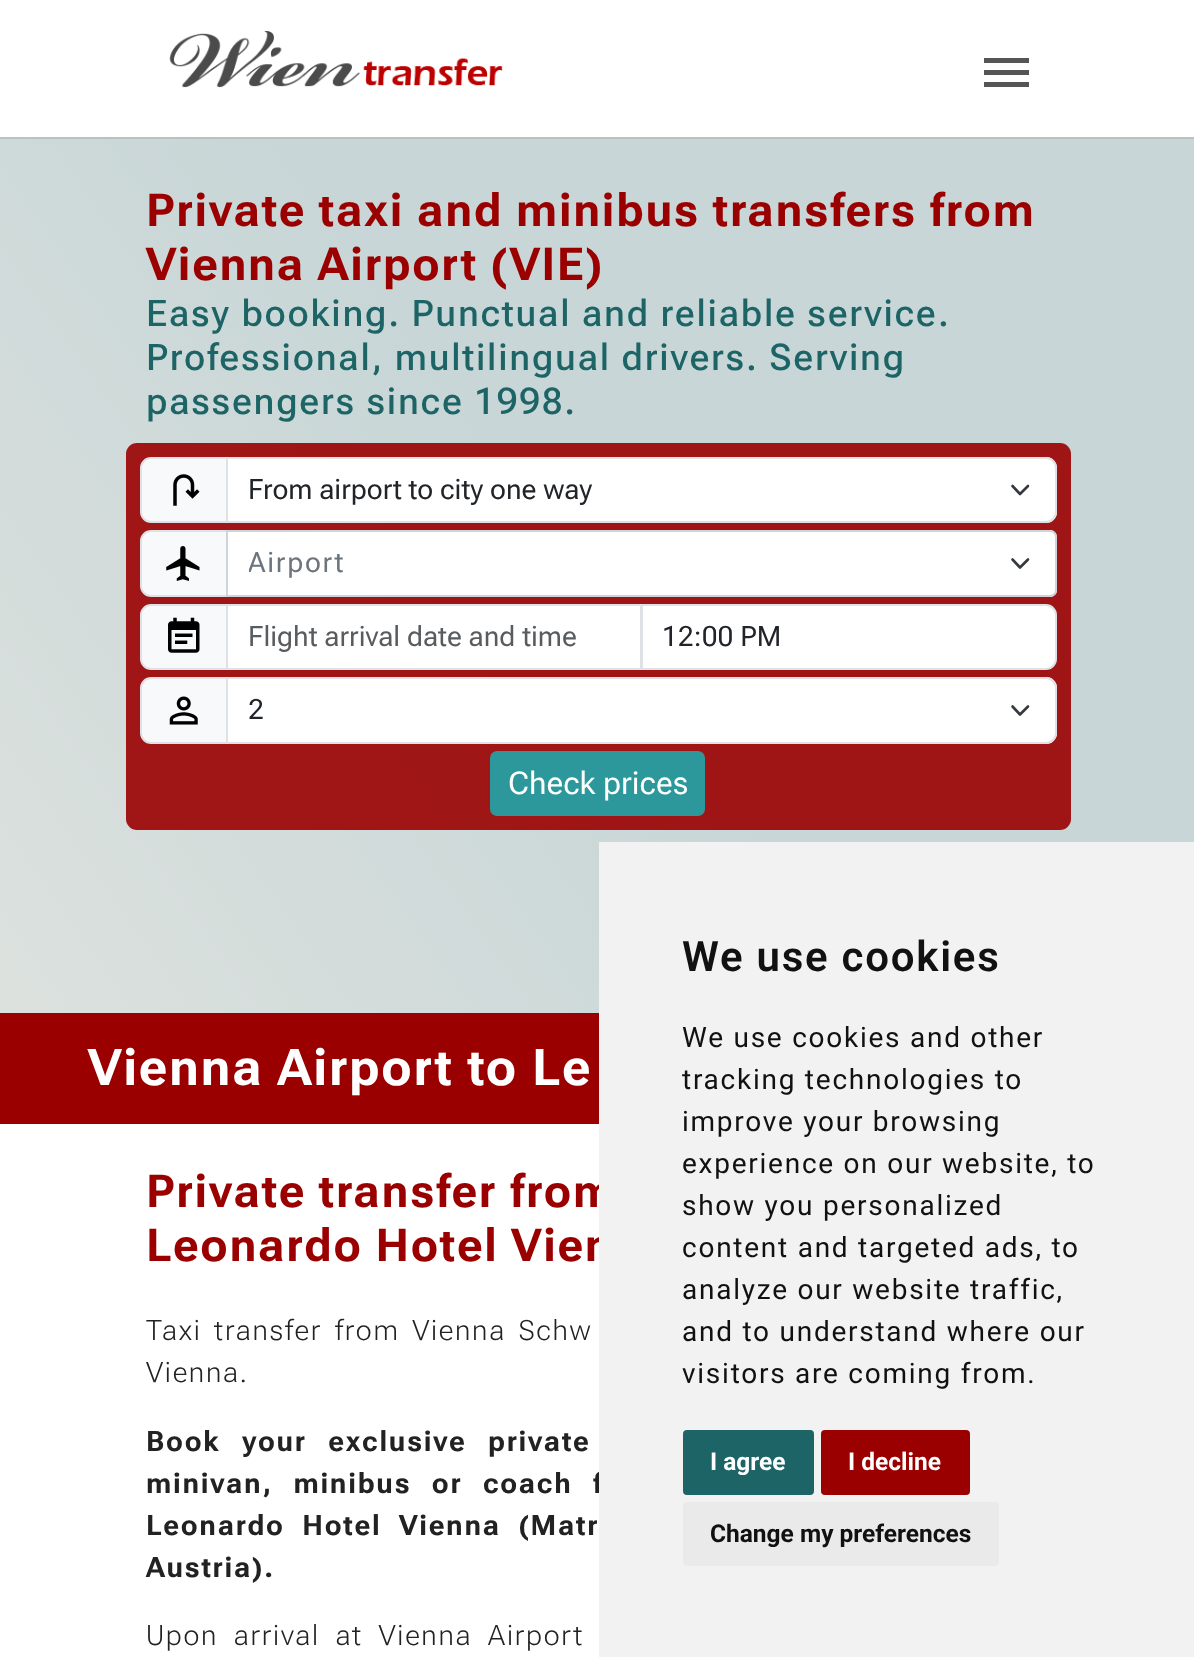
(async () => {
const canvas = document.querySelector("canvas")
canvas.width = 1194
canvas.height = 1657
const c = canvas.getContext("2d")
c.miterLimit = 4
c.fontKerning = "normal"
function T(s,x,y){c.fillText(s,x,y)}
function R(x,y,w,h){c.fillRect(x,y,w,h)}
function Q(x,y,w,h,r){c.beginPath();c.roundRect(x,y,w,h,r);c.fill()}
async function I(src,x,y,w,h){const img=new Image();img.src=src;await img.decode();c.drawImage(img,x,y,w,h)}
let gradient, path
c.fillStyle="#fff"
R(0,0,1194,1657)
c.fillStyle="#b9c2bc"
R(0,137,1194,2)
await I("1.png",169,31,334,57)
c.fillStyle="#555"
R(984,58,45,5)
R(984,70,45,5)
R(984,82,45,5)
gradient = c.createLinearGradient(-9,1000,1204,151)
gradient.addColorStop(0,"#dce1de")
gradient.addColorStop(.49,"#c8d6d7")
c.fillStyle = gradient
R(0,139,1194,874)
c.letterSpacing="1.75px"
c.font="bold 45.5px Roboto Flex"
c.fillStyle="#9a0000"
T("Private taxi and minibus transfers from",146,226)
T("Vienna Airport (VIE)",146,280)
c.font="500 36.75px Roboto Flex"
c.fillStyle="#1d6466"
T("Easy booking. Punctual and reliable service.",146,326)
T("Professional, multilingual drivers. Serving",146,370)
T("passengers since 1998.",146,414)
c.fillStyle="#9a0000e6"
Q(126,443,945,387,11)
c.fillStyle="#f8f9fa"
c.beginPath()
c.roundRect(141,458,86,64,[10,0,0,10])
c.fill()
c.strokeStyle="#dee2e6"
c.lineWidth=2
c.stroke()
await I("2.png",173,474,27,32)
c.fillStyle="#fff"
c.beginPath()
c.roundRect(226,457,831,66,[0,11,11,0])
c.fill()
path = new Path2D("M1012.5 486l7.5 8l8-8")
c.strokeStyle="#343a40"
c.lineWidth=2.6
c.lineCap="round"
c.lineJoin="round"
c.stroke(path)
c.beginPath()
c.roundRect(227,458,829,64,[0,10,10,0])
c.strokeStyle="#dee2e6"
c.lineWidth=2
c.lineJoin="miter"
c.stroke()
c.letterSpacing="0px"
c.font="28px Roboto Flex"
c.fillStyle="#212529"
T("From airport to city one way",248,499)
c.fillStyle="#f8f9fa"
c.beginPath()
c.roundRect(141,531,86,65,[10,0,0,10])
c.fill()
c.stroke()
await I("3.png",166,546,34,35)
c.fillStyle="#fff"
c.beginPath()
c.roundRect(226,530,831,67,[0,7,7,0])
c.fill()
path = new Path2D("M1012.5 559.5l7.5 8l8-8")
c.strokeStyle="#343a40"
c.lineWidth=2.6
c.lineJoin="round"
c.stroke(path)
c.beginPath()
c.roundRect(227,531,829,65,[0,6,6,0])
c.strokeStyle="#ced4da"
c.lineWidth=2
c.lineJoin="miter"
c.stroke()
c.save()
c.beginPath()
c.rect(249,543,743,42)
c.clip()
c.letterSpacing="1.75px"
c.fillStyle="#6c757d"
T("Airport",248,572)
c.restore()
c.fillStyle="#f8f9fa"
c.beginPath()
c.roundRect(141,605,86,64,[10,0,0,10])
c.fill()
c.strokeStyle="#dee2e6"
c.stroke()
await I("4.png",168,617,32,36)
c.fillStyle="#fff"
c.beginPath()
c.rect(227,605,414,64)
c.fill()
c.stroke()
c.fillStyle="#595c5f"
T("Flight arrival date and time",248,646)
c.fillStyle="#fff"
c.beginPath()
c.roundRect(642,605,414,64,[0,10,10,0])
c.fill()
c.stroke()
c.fillStyle="#212529"
T("12:00 PM",662,646)
c.fillStyle="#f8f9fa"
c.beginPath()
c.roundRect(141,678,86,65,[10,0,0,10])
c.fill()
c.stroke()
await I("5.png",169,696,29,29)
c.fillStyle="#fff"
c.beginPath()
c.roundRect(226,677,831,67,[0,11,11,0])
c.fill()
path = new Path2D("M1012.5 706.5l7.5 8l8-8")
c.strokeStyle="#343a40"
c.lineWidth=2.6
c.lineJoin="round"
c.stroke(path)
c.beginPath()
c.roundRect(227,678,829,65,[0,10,10,0])
c.strokeStyle="#dee2e6"
c.lineWidth=2
c.lineJoin="miter"
c.stroke()
c.fillStyle="#212529"
T("2",248,719)
c.fillStyle="#2c989c"
Q(490,751,215,65,7)
c.font="31.5px Roboto Flex"
c.fillStyle="#fff"
T("Check prices",508,794)
c.fillStyle="#9a0000"
R(0,1013,599,111)
c.letterSpacing="1.75px"
c.font="bold 50.5px Roboto Flex"
c.fillStyle="#fff"
T("Vienna Airport to Le",88,1085)
c.font="bold 45.5px Roboto Flex"
c.fillStyle="#9a0000"
T("Private transfer from",146,1207)
T("Leonardo Hotel Vien",146,1261)
c.wordSpacing="4px"
c.font="200 28px Roboto Flex"
c.fillStyle="#222"
T("Taxi transfer from Vienna Schw",146,1340)
c.wordSpacing="0px"
T("Vienna.",146,1382)
c.wordSpacing="13px"
c.font="bold 28px Roboto Flex"
T("Book your exclusive private",146,1451)
c.wordSpacing="12px"
T("minivan, minibus or coach f",146,1493)
c.wordSpacing="9px"
T("Leonardo Hotel Vienna (Matr",146,1535)
c.wordSpacing="0px"
T("Austria).",146,1577)
c.wordSpacing="7px"
c.font="200 28px Roboto Flex"
T("Upon arrival at Vienna Airport",146,1645)
c.fillStyle="#f2f2f2"
R(599,842,595,815)
c.wordSpacing="0px"
c.font="600 42px Roboto"
c.fillStyle="#111"
T("We use cookies",682,971)
c.font="28px Roboto"
T("We use cookies and other",682,1047)
T("tracking technologies to",682,1089)
T("improve your browsing",682,1131)
T("experience on our website, to",682,1173)
T("show you personalized",682,1215)
T("content and targeted ads, to",682,1257)
T("analyze our website traffic,",682,1299)
T("and to understand where our",682,1341)
T("visitors are coming from.",682,1383)
c.fillStyle="#1d6466"
Q(683,1430,131,65,4)
c.letterSpacing="0px"
c.font="bold 24.5px Roboto"
c.fillStyle="#fff"
T("I agree",710,1470)
c.fillStyle="#9a0000"
Q(821,1430,149,65,4)
c.fillStyle="#fff"
T("I decline",848,1470)
c.fillStyle="#eaeaea"
Q(683,1502,316,64,4)
c.fillStyle="#111"
T("Change my preferences",710,1542)
})()
